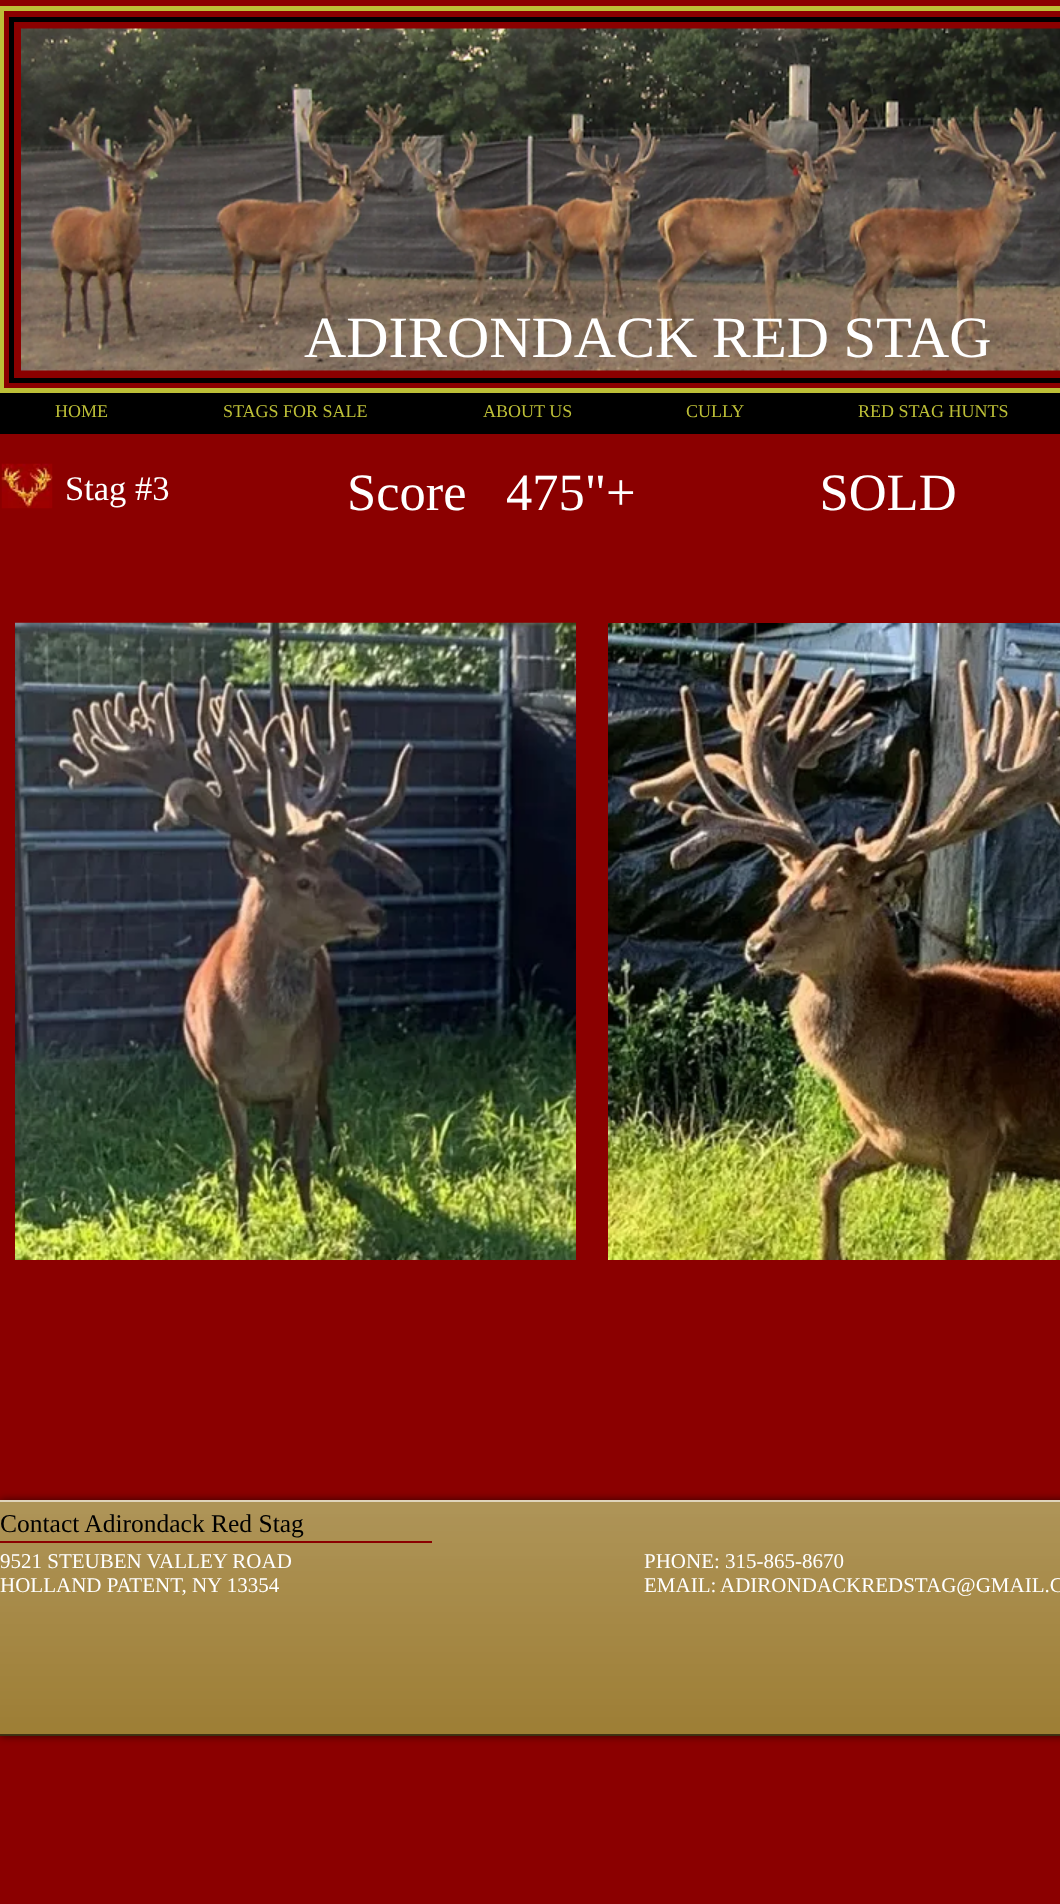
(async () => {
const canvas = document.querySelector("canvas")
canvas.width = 1060
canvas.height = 1904
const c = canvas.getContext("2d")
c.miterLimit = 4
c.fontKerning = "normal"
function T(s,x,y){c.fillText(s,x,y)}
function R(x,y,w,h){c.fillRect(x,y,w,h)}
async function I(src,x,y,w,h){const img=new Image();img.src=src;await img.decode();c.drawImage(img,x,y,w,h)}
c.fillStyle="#8b0000"
R(0,0,1060,1904)
c.strokeStyle="#bdbf37"
c.lineWidth=5
c.strokeRect(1.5,8.5,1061,382)
await I("1.png",21,28,1039,343)
c.strokeStyle="#000"
c.strokeRect(11.5,19.5,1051,361)
c.font="58.5px Liberation Serif"
c.fillStyle="#fff"
T("ADIRONDACK RED STAG",304,357)
c.fillStyle="#000"
R(0,393,1060,41)
c.font="18px Liberation Serif"
c.fillStyle="#bdbf37"
T("HOME",55,417)
T("STAGS FOR SALE",223,417)
T("ABOUT US",483,417)
T("CULLY",686,417)
T("RED STAG HUNTS",858,417)
await I("2.png",1,463,52,46)
c.font="34.5px Liberation Serif"
c.fillStyle="#fff"
T("Stag #3",65,500)
c.font="52.5px Liberation Serif"
T("Score   475\"+              SOLD",347,510)
await I("3.png",15,622,561,638)
await I("4.png",608,623,452,637)
c.fillStyle="#00000099"
c.filter="blur(4px)"
c.beginPath()
c.rect(0,1500,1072,236)
c.fill()
c.filter="none"
c.fillStyle="#93701f"
R(0,1502,1060,234)
await I("5.png",0,1502,1060,234)
c.fillStyle="#00000099"
R(0,1734,1060,2)
c.fillStyle="#dfd4bc"
R(0,1500,1060,2)
c.font="25.5px Liberation Serif"
c.fillStyle="#000"
T("Contact Adirondack Red Stag",0,1532)
c.fillStyle="#8b0000"
R(0,1541,432,2)
c.font="21px Liberation Serif"
c.fillStyle="#fff"
T("9521 STEUBEN VALLEY ROAD",0,1568)
T("HOLLAND PATENT, NY 13354",0,1592)
T("PHONE: 315-865-8670",644,1568)
T("EMAIL:",644,1592)
T("ADIRONDACKREDSTAG@GMAIL.C",720,1592)
})()
